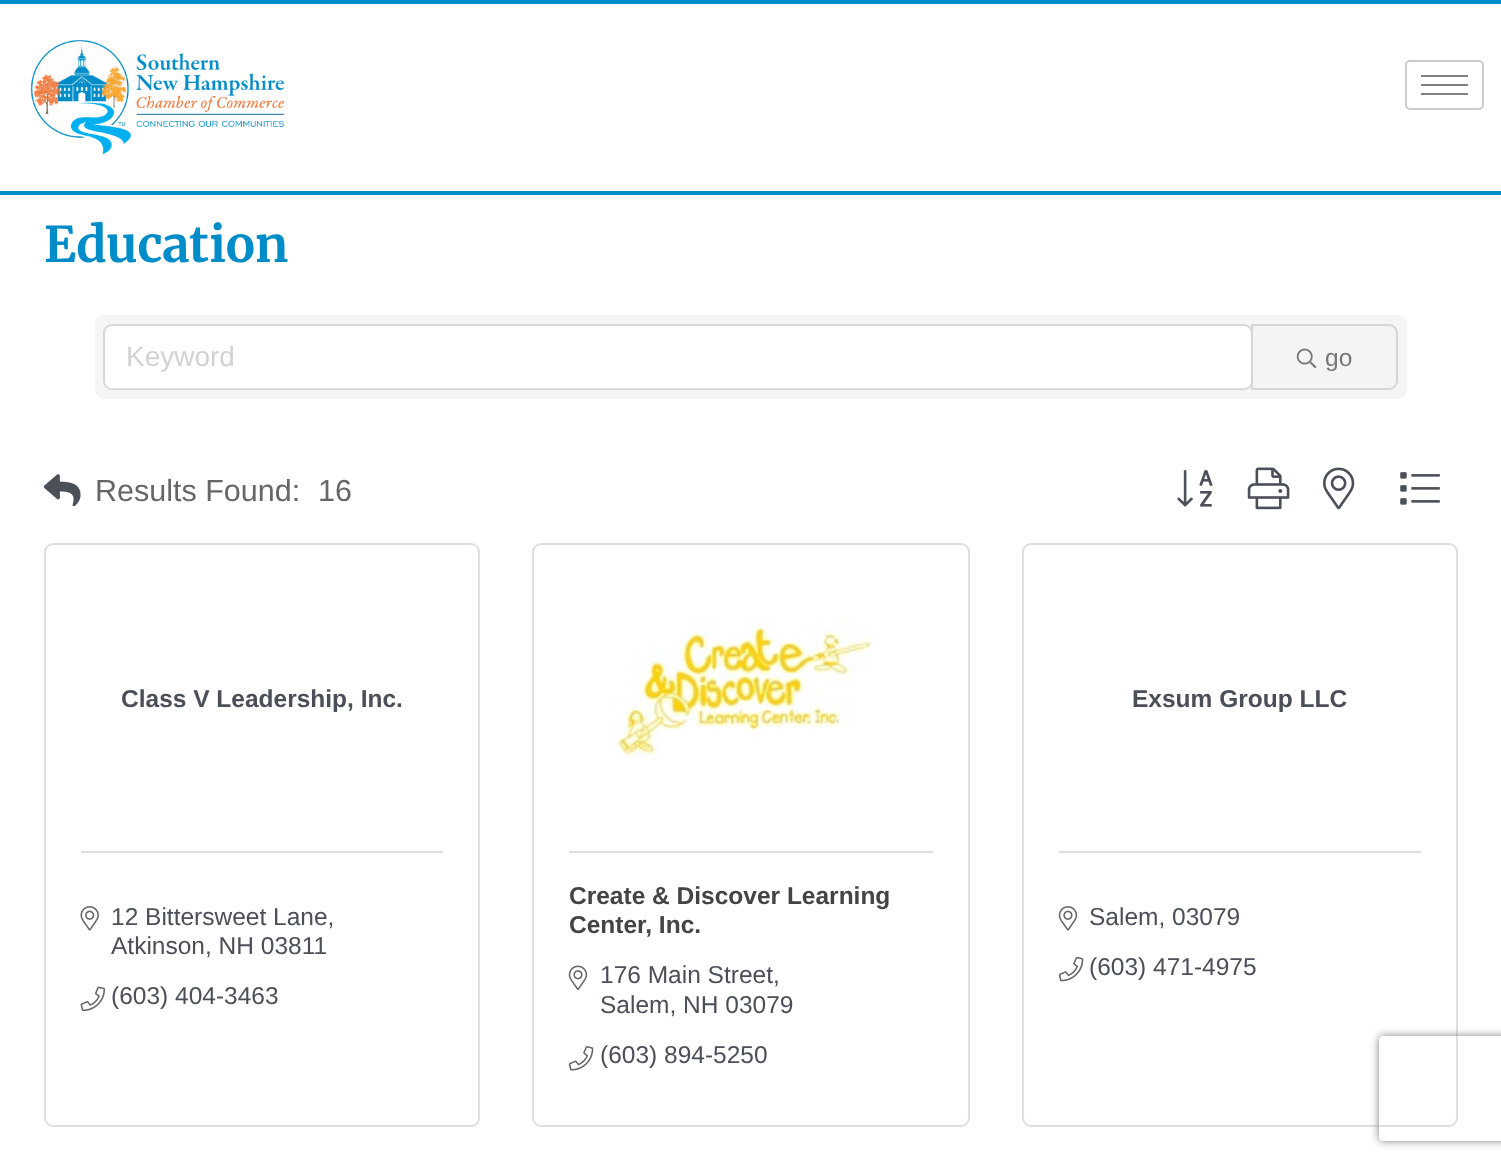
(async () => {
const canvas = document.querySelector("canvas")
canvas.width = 1501
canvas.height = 1164
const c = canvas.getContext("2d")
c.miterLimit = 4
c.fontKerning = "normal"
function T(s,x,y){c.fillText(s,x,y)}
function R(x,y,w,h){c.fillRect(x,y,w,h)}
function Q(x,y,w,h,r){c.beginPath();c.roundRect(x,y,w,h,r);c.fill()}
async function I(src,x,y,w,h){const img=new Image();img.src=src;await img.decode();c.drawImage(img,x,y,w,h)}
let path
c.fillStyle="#fff"
R(0,0,1501,1164)
c.fillStyle="#008cc8"
R(0,0,1501,4)
R(0,191,1501,4)
await I("1.png",30,40,255,115)
c.beginPath()
c.roundRect(1406,61,77,48,4)
c.strokeStyle="#ccc"
c.lineWidth=2
c.stroke()
c.fillStyle="#808080"
R(1421,75,47,2)
R(1421,84,47,2)
R(1421,93,47,2)
c.font="bold 49px Merriweather"
c.fillStyle="#008cc8"
T("Education",44,262)
c.fillStyle="#f5f5f5"
Q(95,315,1312,84,9)
c.fillStyle="#fff"
Q(105,326,1146,63,7)
c.beginPath()
c.roundRect(104,325,1148,64,8)
c.strokeStyle="#0000001f"
c.stroke()
c.font="28px Liberation Sans"
c.fillStyle="#d2d2d2"
T("Keyword",126,366)
c.fillStyle="#f4f4f4"
c.beginPath()
c.roundRect(1252,325,145,64,[0,8,8,0])
c.fill()
c.strokeStyle="#d6d6d6"
c.stroke()
await I("2.png",1296,348,21,21)
c.font="24.5px Liberation Sans"
c.fillStyle="#777"
T("go",1325,366)
await I("3.png",43,474,38,33)
c.font="30.5px Liberation Sans"
c.fillStyle="#666"
T("Results Found:",95,501)
T("16",318,501)
await I("4.png",1177,470,36,37)
await I("5.png",1247,467,43,43)
await I("6.png",1323,467,32,43)
await I("7.png",1400,472,40,33)
c.beginPath()
c.roundRect(45,544,434,582,8)
c.strokeStyle="#dfdfdf"
c.stroke()
c.font="bold 24.5px Liberation Sans"
c.fillStyle="#4b4f58"
T("Class V Leadership, Inc.",121,707)
c.fillStyle="#dfdfdf"
R(81,851,362,2)
await I("8.png",80,906,19,25)
c.font="24.5px Liberation Sans"
c.fillStyle="#4b4f58"
T("12 Bittersweet Lane,",111,925)
T("Atkinson, NH 03811",111,954)
await I("9.png",80,986,26,26)
T("(603) 404-3463",111,1004)
c.beginPath()
c.roundRect(533,544,436,582,8)
c.stroke()
await I("10.png",611,617,262,140)
c.fillStyle="#dfdfdf"
R(569,851,364,2)
c.font="bold 24.5px Liberation Sans"
c.fillStyle="#444"
T("Create & Discover Learning",569,904)
T("Center, Inc.",569,933)
await I("11.png",568,965,20,25)
c.font="24.5px Liberation Sans"
c.fillStyle="#4b4f58"
T("176 Main Street,",600,983)
T("Salem, NH 03079",600,1013)
await I("12.png",568,1046,26,25)
T("(603) 894-5250",600,1063)
c.beginPath()
c.roundRect(1023,544,434,582,8)
c.stroke()
c.font="bold 24.5px Liberation Sans"
T("Exsum Group LLC",1132,707)
c.fillStyle="#dfdfdf"
R(1059,851,362,2)
await I("13.png",1058,906,20,25)
c.font="24.5px Liberation Sans"
c.fillStyle="#4b4f58"
T("Salem, 03079",1089,925)
await I("14.png",1058,956,26,26)
T("(603) 471-4975",1089,975)
c.save()
path = new Path2D("M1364 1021h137v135h-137zm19 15h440c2 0 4 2 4 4v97c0 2-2 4-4 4h-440c-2 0-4-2-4-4v-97c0-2 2-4 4-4z")
c.clip(path,"evenodd")
c.fillStyle="#808080"
c.filter="blur(4.5px)"
c.beginPath()
c.roundRect(1379,1036,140,105,4)
c.fill()
c.filter="none"
c.restore()
})()
